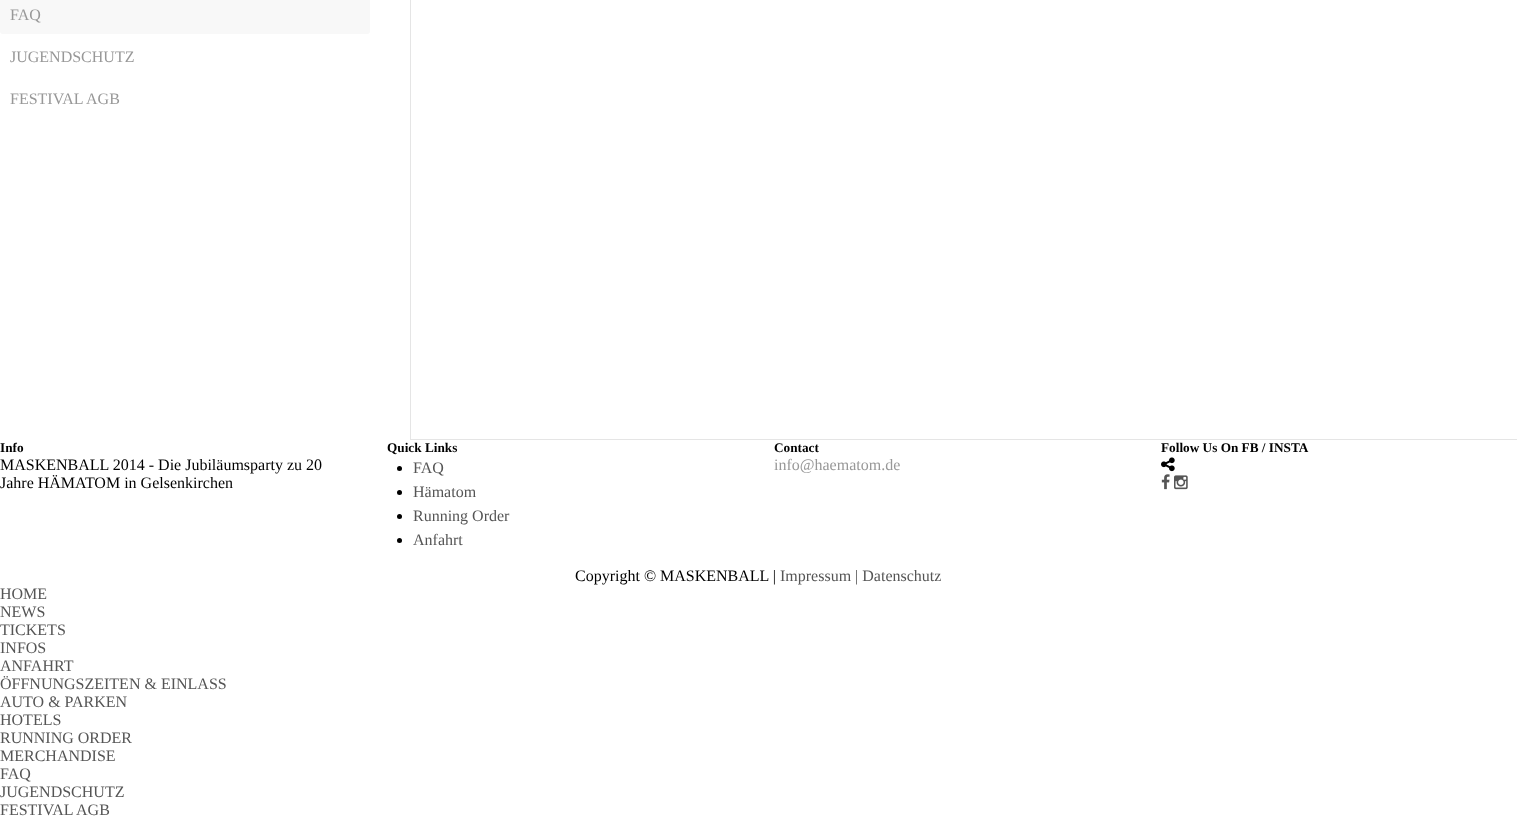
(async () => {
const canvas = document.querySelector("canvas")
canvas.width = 1517
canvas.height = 819
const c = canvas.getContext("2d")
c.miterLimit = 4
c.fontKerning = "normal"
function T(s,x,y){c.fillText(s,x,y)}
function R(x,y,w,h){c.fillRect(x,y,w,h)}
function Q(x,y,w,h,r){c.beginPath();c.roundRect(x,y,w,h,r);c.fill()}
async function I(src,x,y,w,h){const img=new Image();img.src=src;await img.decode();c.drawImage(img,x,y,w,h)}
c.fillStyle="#fff"
R(0,0,1517,819)
c.fillStyle="#f8f8f8"
Q(0,-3,370,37,3)
c.font="16px Liberation Serif"
c.fillStyle="#989898"
T("FAQ",10,20)
T("JUGENDSCHUTZ",10,62)
T("FESTIVAL AGB",10,104)
c.fillStyle="#e5e5e5"
R(410,0,1,440)
R(411,439,1106,1)
c.font="bold 13.25px Liberation Serif"
c.fillStyle="#000"
T("Info",0,452)
c.font="16px Liberation Serif"
T("MASKENBALL 2014 - Die Jubiläumsparty zu 20",0,470)
T("Jahre HÄMATOM in Gelsenkirchen",0,488)
c.font="bold 13.25px Liberation Serif"
T("Quick Links",387,452)
c.beginPath()
c.arc(399.5,468.5,2.5,0,7)
c.fill()
c.font="16px Liberation Serif"
c.fillStyle="#555"
T("FAQ",413,473)
c.fillStyle="#000"
c.beginPath()
c.arc(399.5,492.5,2.5,0,7)
c.fill()
c.fillStyle="#555"
T("Hämatom",413,497)
c.fillStyle="#000"
c.beginPath()
c.arc(399.5,516.5,2.5,0,7)
c.fill()
c.fillStyle="#555"
T("Running Order",413,521)
c.fillStyle="#000"
c.beginPath()
c.arc(399.5,540.5,2.5,0,7)
c.fill()
c.fillStyle="#555"
T("Anfahrt",413,545)
c.font="bold 13.25px Liberation Serif"
c.fillStyle="#000"
T("Contact",774,452)
c.font="16px Liberation Serif"
c.fillStyle="#989898"
T("info@haematom.de",774,470)
c.font="bold 13.25px Liberation Serif"
c.fillStyle="#000"
T("Follow Us On FB / INSTA",1161,452)
await I("1.png",1161,457,14,15)
await I("2.png",1161,474,9,16)
await I("3.png",1174,475,14,15)
c.font="16px Liberation Serif"
T("Copyright © MASKENBALL |",575,581)
c.fillStyle="#555"
T("Impressum | Datenschutz",780,581)
T("HOME",0,599)
T("NEWS",0,617)
T("TICKETS",0,635)
T("INFOS",0,653)
T("ANFAHRT",0,671)
T("ÖFFNUNGSZEITEN & EINLASS",0,689)
T("AUTO & PARKEN",0,707)
T("HOTELS",0,725)
T("RUNNING ORDER",0,743)
T("MERCHANDISE",0,761)
T("FAQ",0,779)
T("JUGENDSCHUTZ",0,797)
T("FESTIVAL AGB",0,815)
})()
